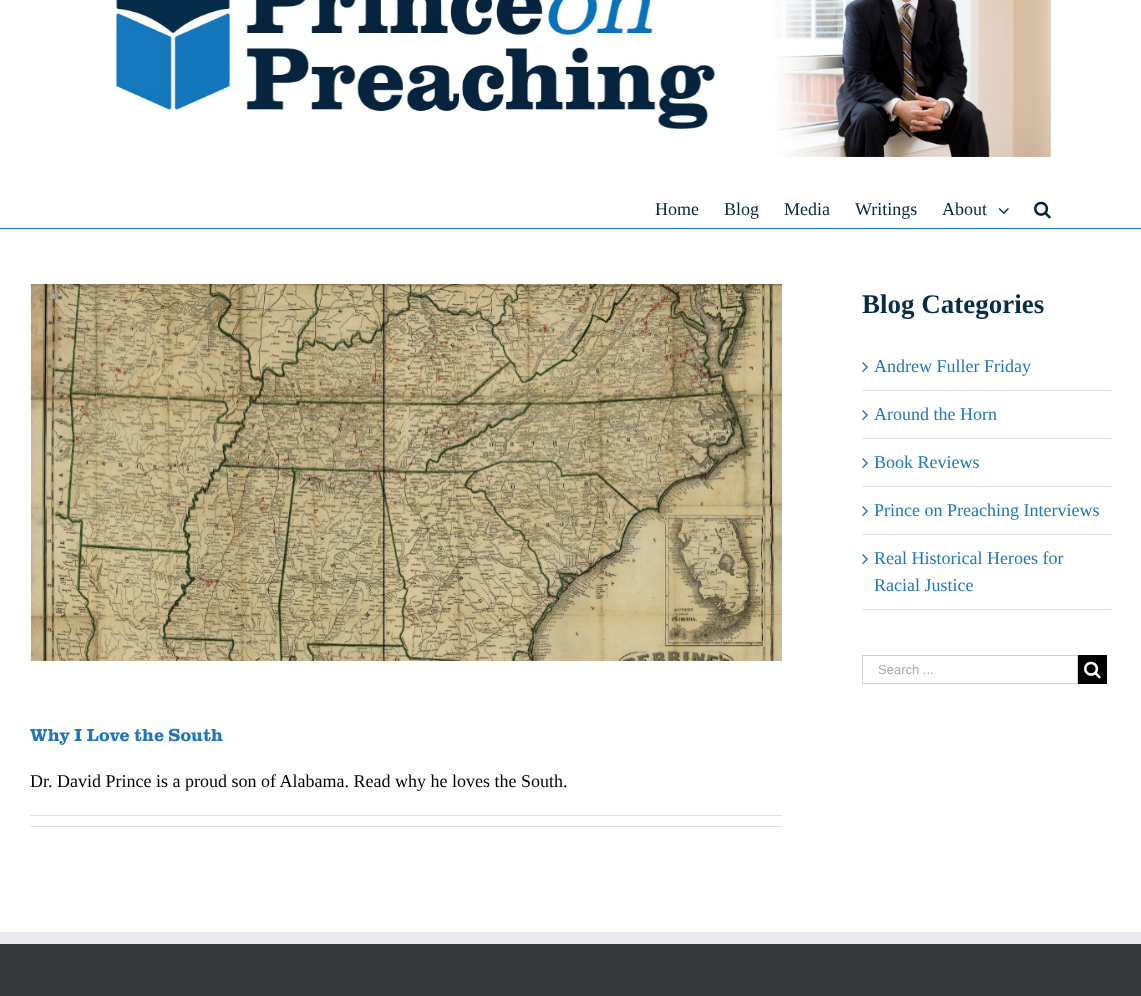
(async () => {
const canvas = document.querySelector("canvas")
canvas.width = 1141
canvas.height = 996
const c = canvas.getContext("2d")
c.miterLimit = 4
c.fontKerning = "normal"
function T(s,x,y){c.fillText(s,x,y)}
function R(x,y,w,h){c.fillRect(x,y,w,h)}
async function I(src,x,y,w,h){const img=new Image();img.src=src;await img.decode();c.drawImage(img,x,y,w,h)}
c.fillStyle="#fff"
R(0,0,1141,996)
c.fillStyle="#2177bd"
R(0,228,1141,1)
await I("1.png",114,0,937,157)
c.font="18px Liberation Serif"
c.fillStyle="#03253d"
T("Home",655,215)
T("Blog",724,215)
T("Media",784,215)
T("Writings",855,215)
T("About",942,215)
await I("2.png",998,208,11,6)
await I("3.png",1034,201,17,18)
c.font="bold 27px Liberation Serif"
c.fillStyle="#072d4a"
T("Blog Categories",862,313)
c.fillStyle="#e0dede"
R(862,390,249,1)
await I("4.png",862,362,6,10)
c.font="18px Liberation Serif"
c.fillStyle="#2177bd"
T("Andrew Fuller Friday",874,372)
c.fillStyle="#e0dede"
R(862,438,249,1)
await I("4.png",862,410,6,10)
c.fillStyle="#2177bd"
T("Around the Horn",874,420)
c.fillStyle="#e0dede"
R(862,486,249,1)
await I("4.png",862,458,6,10)
c.fillStyle="#2177bd"
T("Book Reviews",874,468)
c.fillStyle="#e0dede"
R(862,534,249,1)
await I("4.png",862,506,6,10)
c.fillStyle="#2177bd"
T("Prince on Preaching Interviews",874,516)
c.fillStyle="#e0dede"
R(862,609,249,1)
await I("4.png",862,554,6,10)
c.fillStyle="#2177bd"
T("Real Historical Heroes for",874,564)
T("Racial Justice",874,591)
c.strokeStyle="#d2d2d2"
c.strokeRect(862.5,655.5,215,28)
c.font="13px Liberation Sans"
c.fillStyle="#aaa9a9"
T("Search ...",878,674)
c.fillStyle="#000"
R(1078,655,29,29)
await I("5.png",1084,661,17,18)
await I("6.png",30,284,752,377)
c.font="bold 18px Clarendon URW"
c.fillStyle="#2177bd"
T("Why I Love the South",30,741)
c.font="18px Liberation Serif"
c.fillStyle="#000"
T("Dr. David Prince is a proud son of Alabama. Read why he loves the South.",30,787)
c.fillStyle="#e0dede"
R(30,815,752,1)
R(30,826,752,1)
c.fillStyle="#363839"
R(0,944,1141,52)
c.fillStyle="#e9eaee"
R(0,932,1141,12)
})()
